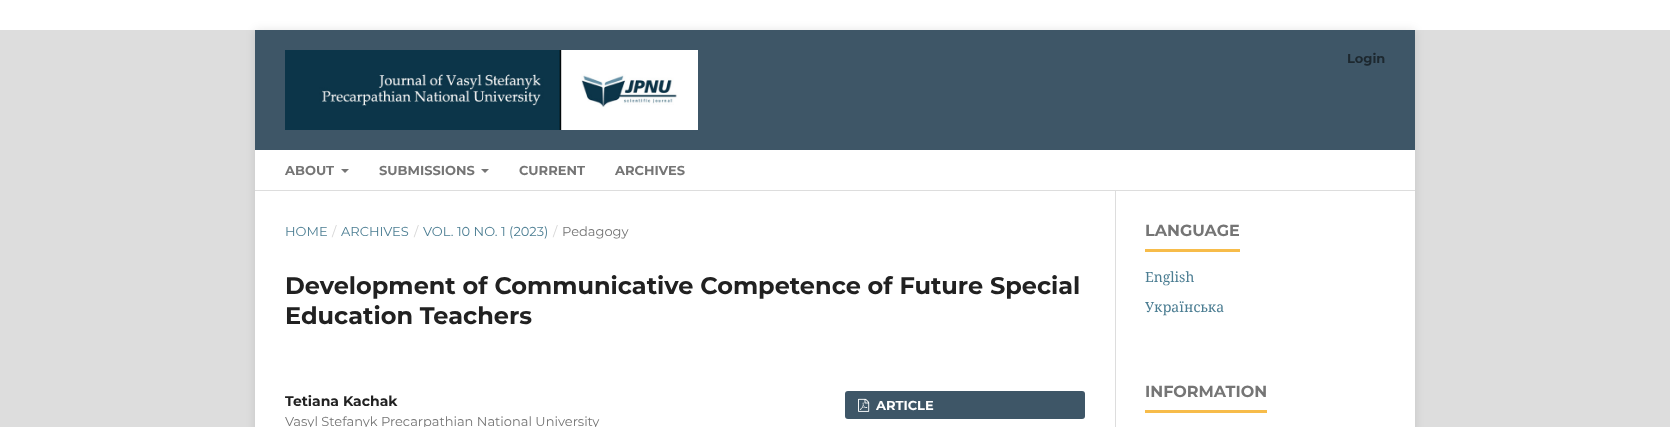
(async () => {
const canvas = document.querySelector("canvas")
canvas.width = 1670
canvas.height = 427
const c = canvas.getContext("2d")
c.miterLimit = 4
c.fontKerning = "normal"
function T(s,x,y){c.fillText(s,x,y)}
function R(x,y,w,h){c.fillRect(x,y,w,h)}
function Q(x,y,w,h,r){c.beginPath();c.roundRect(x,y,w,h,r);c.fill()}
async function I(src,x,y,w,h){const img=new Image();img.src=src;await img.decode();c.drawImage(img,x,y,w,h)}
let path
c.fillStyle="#fff"
R(0,0,1670,427)
c.fillStyle="#ddd"
R(0,30,1670,397)
c.fillStyle="#0000001a"
c.filter="blur(5px)"
c.beginPath()
c.rect(255,30,1160,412)
c.fill()
c.filter="none"
c.fillStyle="#fff"
R(255,191,1160,236)
c.fillStyle="#3e5667"
R(255,30,1160,120)
c.fillStyle="#ddd"
R(255,190,1160,1)
await I("1.png",285,50,413,80)
c.font="bold 13px Montserrat"
c.fillStyle="#1d282f"
T("Login",1347,63)
c.fillStyle="#fff"
R(255,150,1160,40)
c.fillStyle="#757575"
T("ABOUT",285,175)
path = new Path2D("M341 169h8l-4 4z")
c.fill(path)
T("SUBMISSIONS",379,175)
path = new Path2D("M481 169h8l-4 4z")
c.fill(path)
T("CURRENT",519,175)
T("ARCHIVES",615,175)
c.font="13px Montserrat"
c.fillStyle="#4b7d92"
T("HOME",285,236)
c.fillStyle="#d6d6d6"
T("/",332,236)
c.fillStyle="#4b7d92"
T("ARCHIVES",341,236)
c.fillStyle="#d6d6d6"
T("/",414,236)
c.fillStyle="#4b7d92"
T("VOL. 10 NO. 1 (2023)",423,236)
c.fillStyle="#d6d6d6"
T("/",553,236)
c.fillStyle="#757575"
T("Pedagogy",562,236)
c.font="bold 24px Montserrat"
c.fillStyle="#212121"
T("Development of Communicative Competence of Future Special",285,294)
T("Education Teachers",285,324)
c.font="bold 14px Montserrat"
T("Tetiana Kachak",285,406)
c.font="13px Montserrat"
c.fillStyle="#757575"
T("Vasyl Stefanyk Precarpathian National University",285,426)
c.fillStyle="#3e5667"
Q(845,391,240,28,3)
await I("2.png",858,398,12,14)
c.font="bold 13px Montserrat"
c.fillStyle="#fff"
T("ARTICLE",876,410)
c.fillStyle="#ddd"
R(1115,191,1,236)
c.fillStyle="#f7bc4a"
R(1145,249,95,3)
c.font="bold 16px Montserrat"
c.fillStyle="#757575"
T("LANGUAGE",1145,236)
c.font="14px Noto Serif"
c.fillStyle="#4b7d92"
T("English",1145,282)
T("Українська",1145,312)
c.fillStyle="#f7bc4a"
R(1145,410,122,3)
c.font="bold 16px Montserrat"
c.fillStyle="#757575"
T("INFORMATION",1145,397)
})()
